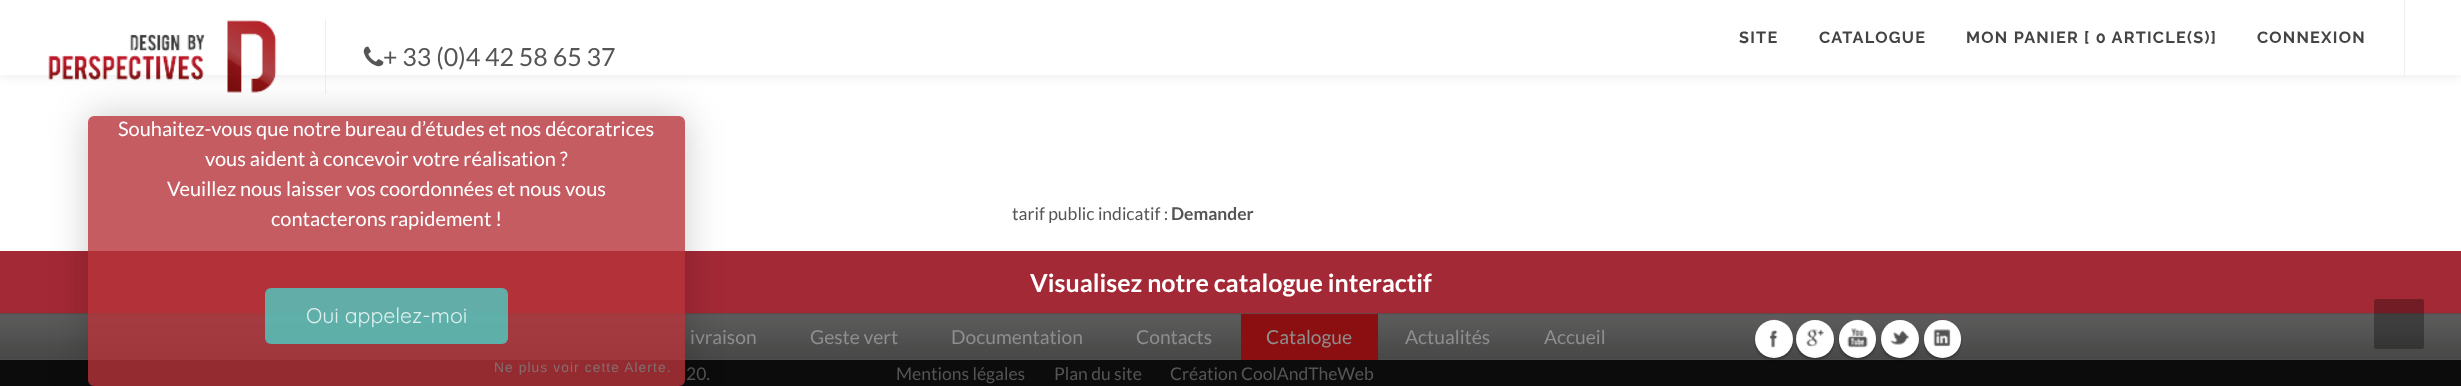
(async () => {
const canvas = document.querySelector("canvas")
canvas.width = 2461
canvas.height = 386
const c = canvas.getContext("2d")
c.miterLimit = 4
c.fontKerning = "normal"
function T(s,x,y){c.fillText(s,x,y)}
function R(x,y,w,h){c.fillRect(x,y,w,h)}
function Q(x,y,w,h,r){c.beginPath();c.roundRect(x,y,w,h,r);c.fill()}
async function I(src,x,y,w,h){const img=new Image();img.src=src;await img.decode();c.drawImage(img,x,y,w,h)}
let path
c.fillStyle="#fff"
R(0,0,2461,386)
c.fillStyle="#0000001a"
c.filter="blur(6px)"
c.beginPath()
c.rect(0,0,2461,75)
c.fill()
c.filter="none"
c.fillStyle="#fff"
R(0,0,2461,75)
c.fillStyle="#eee"
R(325,19,1,75)
await I("1.png",48,20,229,73)
R(2404,0,1,75)
c.letterSpacing="1.25px"
c.font="bold 16.25px Raleway"
c.fillStyle="#444"
T("SITE",1739,43)
T("CATALOGUE",1819,43)
T("MON PANIER [ 0 ARTICLE(S)]",1966,43)
T("CONNEXION",2257,43)
await I("2.png",363,46,21,21)
c.letterSpacing="0px"
c.font="25px Lato"
c.fillStyle="#555"
T("+ 33 (0)4 42 58 65 37",383,66)
c.font="17.5px Lato"
T("tarif public indicatif :",1012,220)
c.font="bold 17.5px Lato"
T("Demander",1171,220)
c.fillStyle="#a42936"
R(0,251,2461,63)
c.font="bold 25px Lato"
c.fillStyle="#fff"
T("Visualisez notre catalogue interactif",1030,292)
await I("3.png",0,313,2461,47)
c.font="19.25px Lato"
c.fillStyle="#8e8e8e"
T("ivraison",690,344)
T("Geste vert",810,344)
T("Documentation",951,344)
T("Contacts",1136,344)
c.fillStyle="#8b0e10"
R(1241,314,137,46)
c.fillStyle="#8e8e8e"
T("Catalogue",1266,344)
T("Actualités",1405,344)
T("Accueil",1544,344)
c.fillStyle="#0c0c0c"
R(0,360,2461,26)
c.fillStyle="#0000004d"
c.filter="blur(1px)"
c.beginPath()
c.roundRect(1755,323,38,37,18.5)
c.fill()
c.filter="none"
c.fillStyle="#fff"
c.beginPath()
c.arc(1774,339,19,0,7)
c.fill()
await I("4.png",1769,319,9,38)
c.fillStyle="#0000004d"
c.filter="blur(1px)"
c.beginPath()
c.roundRect(1796,323,38,37,18.5)
c.fill()
c.filter="none"
c.fillStyle="#fff"
c.beginPath()
c.arc(1815,339,19,0,7)
c.fill()
await I("5.png",1806,319,18,38)
c.fillStyle="#0000004d"
c.filter="blur(1px)"
c.beginPath()
c.roundRect(1839,323,37,37,18.5)
c.fill()
c.filter="none"
c.fillStyle="#fff"
Q(1839,320,37,38,18.5)
await I("6.png",1847,319,21,38)
c.fillStyle="#0000004d"
c.filter="blur(1px)"
c.beginPath()
c.roundRect(1881,323,38,37,18.5)
c.fill()
c.filter="none"
c.fillStyle="#fff"
c.beginPath()
c.arc(1900,339,19,0,7)
c.fill()
await I("7.png",1890,319,19,38)
c.fillStyle="#0000004d"
c.filter="blur(1px)"
c.beginPath()
c.roundRect(1924,323,37,37,18.5)
c.fill()
c.filter="none"
c.fillStyle="#fff"
Q(1924,320,37,38,18.5)
await I("8.png",1933,319,18,38)
c.font="17.5px Lato"
c.fillStyle="#555"
T("20.",686,380)
T("Mentions légales",896,380)
T("Plan du site",1054,380)
T("Création CoolAndTheWeb",1170,380)
c.save()
path = new Path2D("M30 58h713v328h-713zm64 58h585c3.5 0 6 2.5 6 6v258c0 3.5-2.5 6-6 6h-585c-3.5 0-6-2.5-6-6v-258c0-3.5 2.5-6 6-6z")
c.clip(path,"evenodd")
c.fillStyle="#00000033"
c.filter="blur(19px)"
c.beginPath()
c.roundRect(88,116,597,270,6)
c.fill()
c.filter="none"
c.restore()
c.fillStyle="#b6333acc"
c.beginPath()
c.roundRect(88,116,597,139,[6,6,0,0])
c.fill()
c.font="20px Lato"
c.fillStyle="#fff"
T("Souhaitez-vous que notre bureau d’études et nos décoratrices",118,136)
T("vous aident à concevoir votre réalisation ?",205,166)
T("Veuillez nous laisser vos coordonnées et nous vous",167,196)
T("contacterons rapidement !",271,226)
c.fillStyle="#b6333acc"
c.beginPath()
c.roundRect(88,255,597,131,[0,0,6,6])
c.fill()
c.fillStyle="#4ecdc4cc"
Q(265,288,243,56,6)
c.font="21.25px Quicksand"
c.fillStyle="#dfefee"
T("Oui appelez-moi",306,323)
c.letterSpacing="1.1px"
c.font="13.75px Liberation Sans"
c.fillStyle="#846f70"
T("Ne plus voir cette Alerte.",494,372)
c.fillStyle="#0000004d"
Q(2374,299,50,50,2.5)
})()
